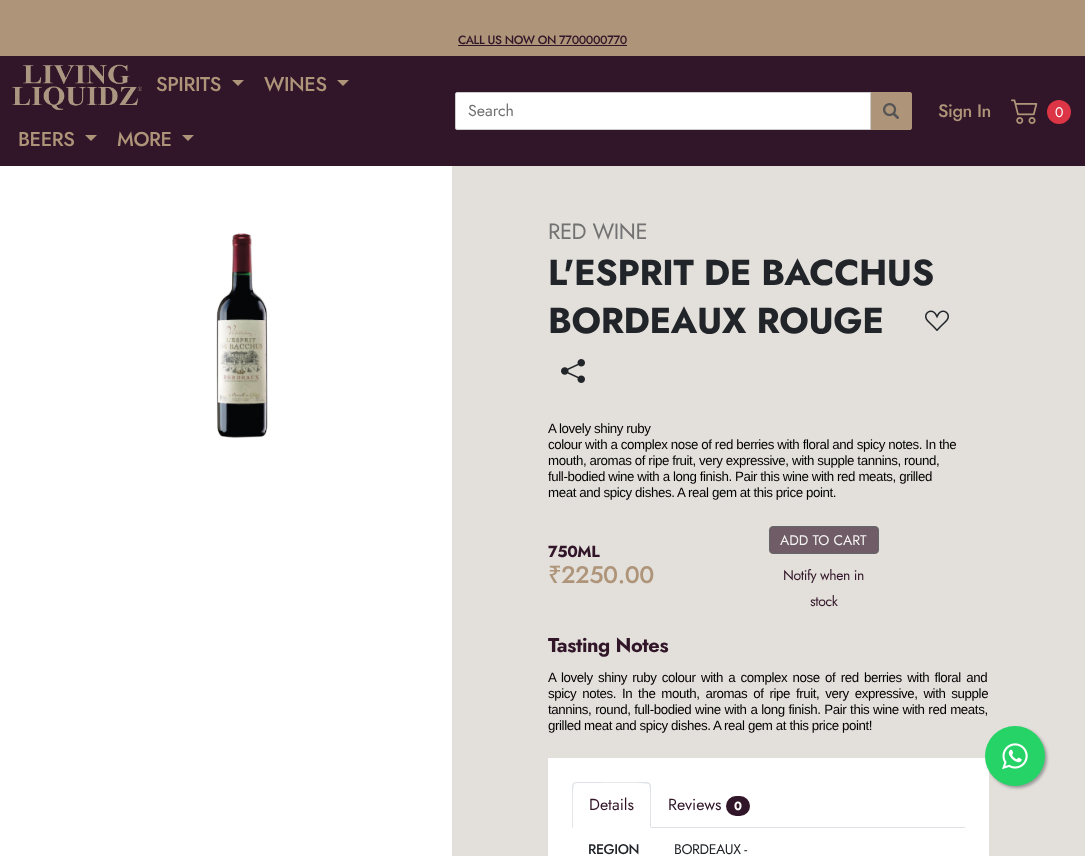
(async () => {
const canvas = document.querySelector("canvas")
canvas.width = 1085
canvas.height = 856
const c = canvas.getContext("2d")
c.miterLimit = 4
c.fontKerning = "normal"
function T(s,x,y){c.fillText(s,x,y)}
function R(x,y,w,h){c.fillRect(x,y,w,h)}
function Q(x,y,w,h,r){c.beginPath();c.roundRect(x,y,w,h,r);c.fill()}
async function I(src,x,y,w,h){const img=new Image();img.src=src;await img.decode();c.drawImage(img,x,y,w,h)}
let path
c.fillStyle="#e3dfda"
R(0,0,1085,856)
c.fillStyle="#ae9479"
R(0,0,1085,56)
c.letterSpacing="-0.4px"
c.font="500 12px Jost"
c.fillStyle="#311528"
T("CALL US NOW ON 7700000770",458,44)
R(458,45,169,1)
R(0,56,1085,110)
await I("1.png",12,64,130,46)
c.font="500 20px Jost"
c.fillStyle="#ae9479"
T("SPIRITS",156,91)
path = new Path2D("M232 80h12l-6 6z")
c.fill(path)
T("WINES",264,91)
path = new Path2D("M337 80h12l-6 6z")
c.fill(path)
T("BEERS",18,146)
path = new Path2D("M85 135h12l-6 6z")
c.fill(path)
T("MORE",117,146)
path = new Path2D("M182 135h12l-6 6z")
c.fill(path)
c.beginPath()
c.roundRect(870.5,92.5,41,37,[0,1.5,1.5,0])
c.fill()
c.strokeStyle="#ae9479"
c.stroke()
c.fillStyle="#fff"
c.beginPath()
c.roundRect(455.5,92.5,415,37,[1.5,0,0,1.5])
c.fill()
c.strokeStyle="#ccc"
c.stroke()
c.letterSpacing="0px"
c.font="16px Jost"
c.fillStyle="#727272"
T("Search",468,116)
await I("2.png",883,103,16,16)
c.letterSpacing="-0.4px"
c.font="500 18px Jost"
c.fillStyle="#ae9479"
T("Sign In",938,117)
await I("3.png",1011,99,27,25)
c.fillStyle="#dc3545"
c.beginPath()
c.arc(1059,112,12,0,7)
c.fill()
c.font="14px Jost"
c.fillStyle="#fff"
T("0",1055,117)
R(0,166,452,690)
await I("4.png",216,233,52,205)
c.font="22px Jost"
c.fillStyle="#727272"
T("RED WINE",548,239)
c.font="bold 36px Jost"
c.fillStyle="#212529"
T("L'ESPRIT DE BACCHUS",548,285)
T("BORDEAUX ROUGE",548,333)
await I("5.png",925,310,24,21)
await I("6.png",561,359,24,24)
c.font="13.3px Liberation Sans"
c.fillStyle="#000"
T("A lovely shiny ruby",548,433)
T("colour with a complex nose of red berries with floral and spicy notes. In the",548,449)
T("mouth, aromas of ripe fruit, very expressive, with supple tannins, round,",548,465)
T("full-bodied wine with a long finish. Pair this wine with red meats, grilled",548,481)
T("meat and spicy dishes. A real gem at this price point.",548,497)
c.font="bold 16px Jost"
c.fillStyle="#311528"
T("750ML",548,557)
c.font="500 24px Noto Sans"
c.fillStyle="#ae9479"
T("₹",548,583)
c.font="500 24px Jost"
T("2250.00",561,583)
c.fillStyle="#6f5c66"
c.beginPath()
c.roundRect(769.5,526.5,109,27,3.5)
c.fill()
c.strokeStyle="#656667"
c.stroke()
c.letterSpacing="0px"
c.font="14px Jost"
c.fillStyle="#f5f4f2"
T("ADD TO CART",780,545)
c.letterSpacing="-0.4px"
c.fillStyle="#311528"
T("Notify when in",783,580)
T("stock",810,606)
c.font="bold 20px Jost"
T("Tasting Notes",548,652)
c.wordSpacing="2px"
c.font="13.3px Liberation Sans"
c.fillStyle="#000"
T("A lovely shiny ruby colour with a complex nose of red berries with floral and",548,682)
c.wordSpacing="2.6px"
T("spicy notes. In the mouth, aromas of ripe fruit, very expressive, with supple",548,698)
c.wordSpacing="0.5px"
T("tannins, round, full-bodied wine with a long finish. Pair this wine with red meats,",548,714)
c.wordSpacing="0px"
T("grilled meat and spicy dishes. A real gem at this price point!",548,730)
c.fillStyle="#fff"
R(548,758,441,98)
c.fillStyle="#dee2e6"
R(651,827,314,1)
path = new Path2D("M576 782l-3 1l1 1l2-1h12c7 0 59-1 61 1l1-1l-3-1z")
c.fill(path)
path = new Path2D("M651 828v-42c0-1-1-2-1-3l-1 1c2 2 1 38 1 43z")
c.fill(path)
c.fillStyle="#fff"
path = new Path2D("M651 828l-1-1h-77l-1 1z")
c.fill(path)
c.fillStyle="#dee2e6"
path = new Path2D("M572 828l1-1c0-5-1-41 1-43l-1-1l-1 3z")
c.fill(path)
c.letterSpacing="0px"
c.font="16px Jost"
c.fillStyle="#311528"
T("Details",589,810)
T("Reviews",668,810)
Q(726,796,24,20,10)
c.font="bold 12px Jost"
c.fillStyle="#fff"
T("0",734,810)
c.letterSpacing="-0.4px"
c.font="500 14px Jost"
c.fillStyle="#212529"
T("REGION",588,854)
c.font="14px Jost"
T("BORDEAUX -",674,854)
c.fillStyle="#999"
c.filter="blur(1.5px)"
c.beginPath()
c.roundRect(987,728,60,60,30)
c.fill()
c.filter="none"
c.fillStyle="#25d366"
c.beginPath()
c.arc(1015,756,30,0,7)
c.fill()
await I("7.png",1002,743,26,27)
})()
